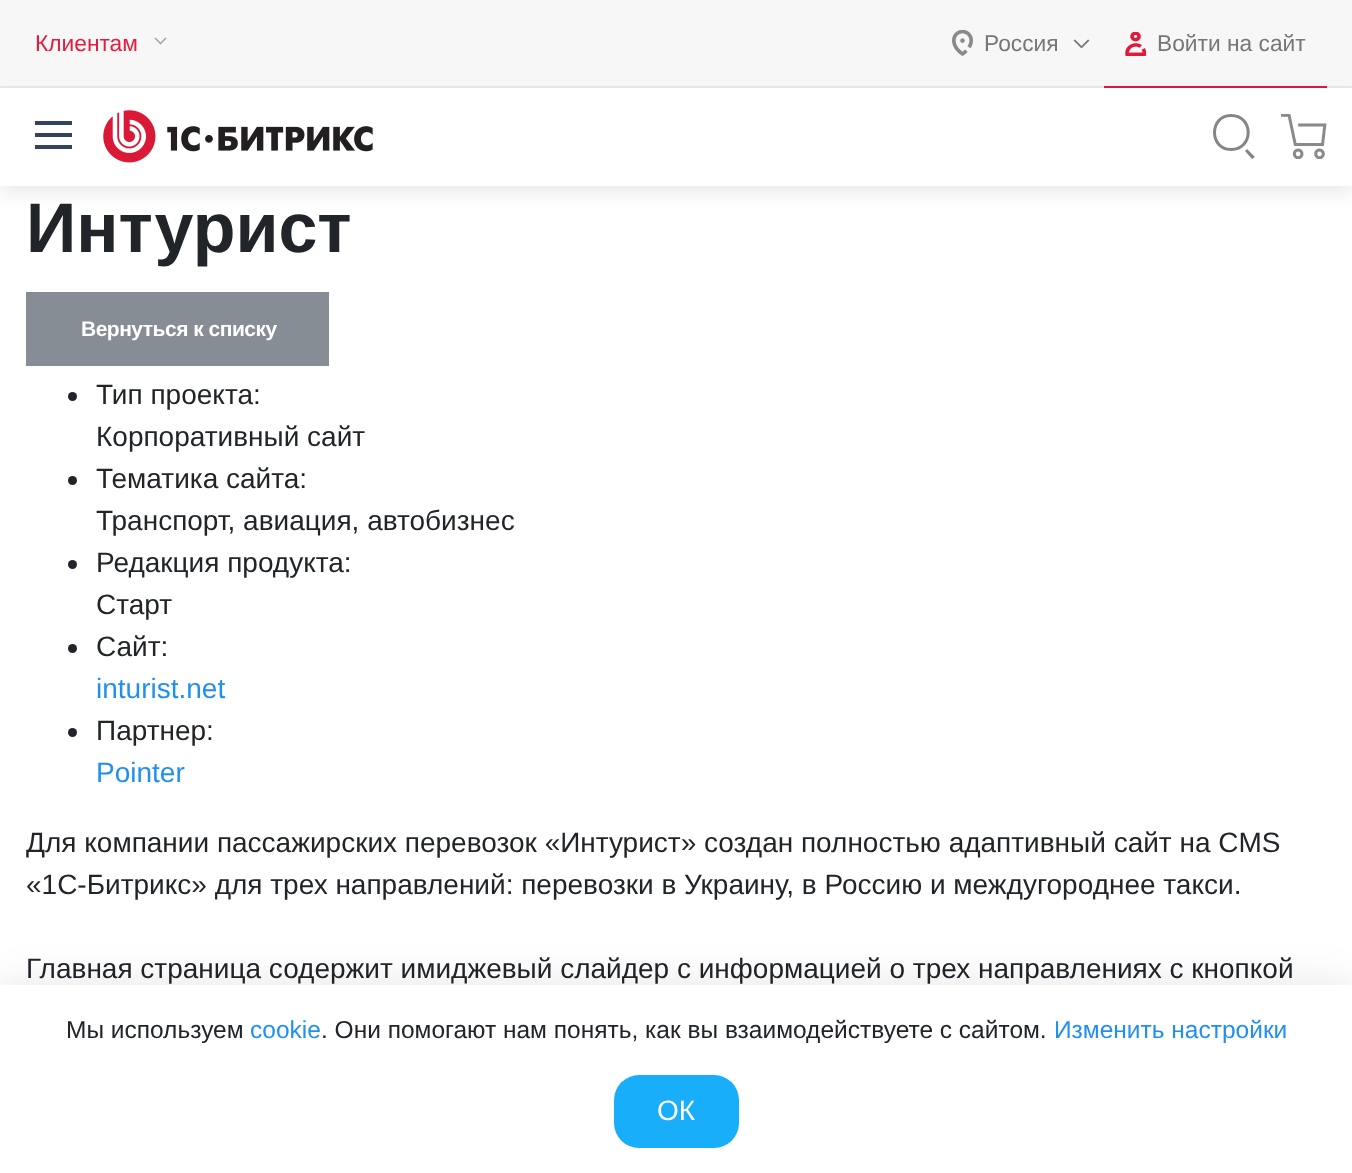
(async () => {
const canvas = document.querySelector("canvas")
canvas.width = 1352
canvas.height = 1173
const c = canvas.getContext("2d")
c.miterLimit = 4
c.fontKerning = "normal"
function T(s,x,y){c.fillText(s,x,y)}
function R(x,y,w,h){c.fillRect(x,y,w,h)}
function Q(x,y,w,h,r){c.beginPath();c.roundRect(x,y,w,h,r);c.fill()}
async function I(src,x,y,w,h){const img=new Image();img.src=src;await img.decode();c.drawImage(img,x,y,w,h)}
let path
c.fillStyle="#fff"
R(0,0,1352,1173)
c.fillStyle="#f7f7f7"
R(0,0,1352,86)
c.fillStyle="#e9e9e9"
R(0,86,1352,2)
c.font="22.75px Liberation Sans"
c.fillStyle="#e41c3d"
T("Клиентам",35,51)
c.fillStyle="#a1a1a1"
path = new Path2D("M159.5 43.5l6-6l1 1l-6 6z")
c.fill(path)
path = new Path2D("M154.5 38.5l1-1l6 6l-1 1z")
c.fill(path)
await I("1.png",952,30,21,26)
c.fillStyle="#777"
T("Россия",984,51)
path = new Path2D("M1075 39.5l7.5 7.5l-1.5 1l-7.5-7.5z")
c.fill(path)
path = new Path2D("M1080.5 47l7.5-7.5l1.5 1l-7.5 7.5z")
c.fill(path)
c.fillStyle="#e01839"
R(1104,86,223,2)
await I("2.png",1125,32,21,24)
c.fillStyle="#777"
T("Войти на сайт",1157,51)
c.fillStyle="#00000014"
c.filter="blur(9px)"
c.beginPath()
c.rect(0,96,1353,98)
c.fill()
c.filter="none"
c.fillStyle="#fff"
R(0,88,1352,98)
c.fillStyle="#32425f"
R(35,133,37,4)
R(35,121,37,4)
R(35,145,37,4)
await I("3.png",103,110,270,53)
c.fillStyle="#858585"
path = new Path2D("M1231 151c-24 0-24-37 0-37c25 0 25 37 0 37zm0-34c-20 0-20 31 0 31c21 0 21-31 0-31zm24 40l-3 2l-7-8l2-2z")
c.fill(path,"evenodd")
await I("4.png",1281,114,46,45)
c.font="bold 70px Liberation Sans"
c.fillStyle="#212529"
T("Интурист",26,252)
c.fillStyle="#868d95"
R(26,292,303,74)
c.letterSpacing="-0.5px"
c.font="bold 21px Liberation Sans"
c.fillStyle="#fff"
T("Вернуться к списку",81,336)
c.fillStyle="#212529"
c.beginPath()
c.arc(72.5,396.5,4.5,0,7)
c.fill()
c.letterSpacing="0px"
c.font="28px Liberation Sans"
T("Тип проекта:",96,404)
T("Корпоративный сайт",96,446)
c.beginPath()
c.arc(72.5,480.5,4.5,0,7)
c.fill()
T("Тематика сайта:",96,488)
T("Транспорт, авиация, автобизнес",96,530)
c.beginPath()
c.arc(72.5,564.5,4.5,0,7)
c.fill()
T("Редакция продукта:",96,572)
T("Старт",96,614)
c.beginPath()
c.arc(72.5,648.5,4.5,0,7)
c.fill()
T("Сайт:",96,656)
c.fillStyle="#1f90ef"
T("inturist.net",96,698)
c.fillStyle="#212529"
c.beginPath()
c.arc(72.5,732.5,4.5,0,7)
c.fill()
T("Партнер:",96,740)
c.fillStyle="#1f90ef"
T("Pointer",96,782)
c.fillStyle="#212529"
T("Для компании пассажирских перевозок «Интурист» создан полностью адаптивный сайт на CMS",26,852)
T("«1С-Битрикс» для трех направлений: перевозки в Украину, в Россию и междугороднее такси.",26,894)
T("Главная страница содержит имиджевый слайдер с информацией о трех направлениях с кнопкой",26,978)
c.fillStyle="#0000001a"
c.filter="blur(21px)"
c.beginPath()
c.rect(0,985,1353,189)
c.fill()
c.filter="none"
c.fillStyle="#fff"
R(0,985,1352,188)
c.font="24.5px Liberation Sans"
c.fillStyle="#212529"
T("Мы используем",66,1038)
c.fillStyle="#1f90ef"
T("cookie",250,1038)
c.fillStyle="#212529"
T(". Они помогают нам понять, как вы взаимодействуете с сайтом.",321,1038)
c.fillStyle="#1f90ef"
T("Изменить настройки",1054,1038)
c.fillStyle="#19aef9"
Q(614,1075,125,73,25)
c.font="28px Liberation Sans"
c.fillStyle="#fff"
T("ОК",657,1120)
})()
